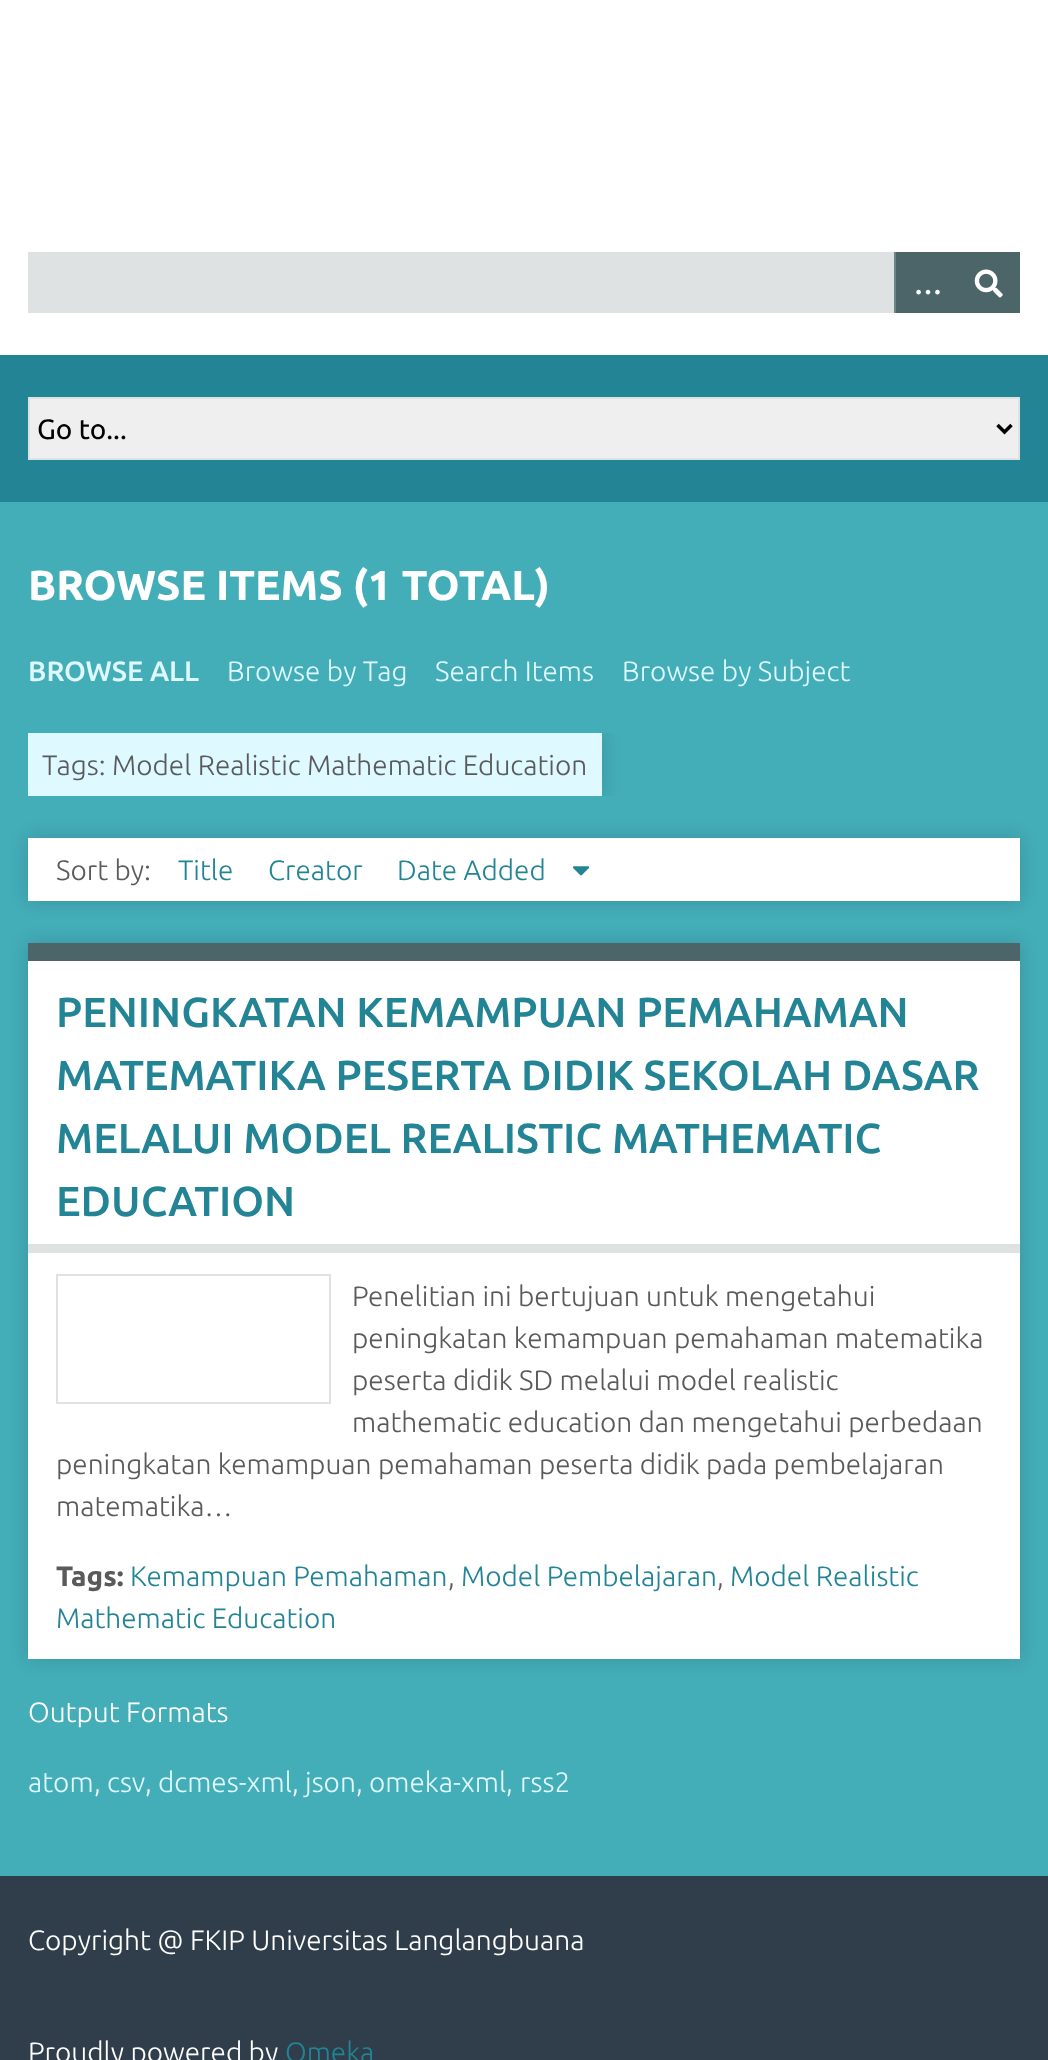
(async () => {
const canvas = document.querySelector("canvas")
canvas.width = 1048
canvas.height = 2060
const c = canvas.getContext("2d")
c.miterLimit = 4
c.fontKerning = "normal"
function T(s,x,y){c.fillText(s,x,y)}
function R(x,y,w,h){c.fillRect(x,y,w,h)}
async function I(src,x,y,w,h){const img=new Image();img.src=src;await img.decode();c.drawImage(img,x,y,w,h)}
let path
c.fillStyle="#2f3e4a"
R(0,0,1048,2060)
c.fillStyle="#fff"
R(0,0,1048,355)
c.fillStyle="#dfe2e2"
R(28,252,866,61)
c.fillStyle="#4b6569"
R(896,252,124,61)
c.fillStyle="#6f8487"
R(894,252,2,61)
c.font="bold 28px Liberation Serif"
c.fillStyle="#fff"
T("…",914,294)
await I("1.png",974,269,29,29)
c.fillStyle="#228494"
R(0,355,1048,147)
c.fillStyle="#efefef"
c.beginPath()
c.rect(29,398,990,61)
c.fill()
c.strokeStyle="#dfe2e2"
c.lineWidth=2
c.stroke()
path = new Path2D("M997.5 425l7 7l7-7")
c.strokeStyle="#000"
c.lineWidth=3.5
c.stroke(path)
c.font="28px Ubuntu"
c.fillStyle="#000"
T("Go to...",37,439)
c.fillStyle="#43adb8"
R(0,502,1048,1374)
c.font="bold 42px Ubuntu"
c.fillStyle="#fff"
T("BROWSE ITEMS (1 TOTAL)",28,600)
c.font="500 28px Ubuntu"
c.fillStyle="#def9ff"
T("BROWSE ALL",28,681)
c.font="300 28px Ubuntu"
T("Browse by Tag",227,681)
T("Search Items",435,681)
T("Browse by Subject",622,681)
c.save()
c.beginPath()
c.rect(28,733,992,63)
c.clip()
c.fillStyle="#00000026"
c.filter="blur(9px)"
c.beginPath()
c.rect(28,733,574,63)
c.fill()
c.filter="none"
c.restore()
R(28,733,574,63)
c.fillStyle="#5a5a5a"
T("Tags: Model Realistic Mathematic Education",42,775)
c.fillStyle="#00000026"
c.filter="blur(9px)"
c.beginPath()
c.rect(28,838,992,63)
c.fill()
c.filter="none"
c.fillStyle="#fff"
R(28,838,992,63)
c.fillStyle="#5a5a5a"
T("Sort by:",56,880)
c.fillStyle="#228494"
T("Title",178,880)
T("Creator",268,880)
T("Date Added",397,880)
await I("2.png",572,866,18,10)
c.fillStyle="#00000026"
c.filter="blur(9px)"
c.beginPath()
c.rect(28,943,992,716)
c.fill()
c.filter="none"
c.fillStyle="#fff"
R(28,961,992,698)
c.fillStyle="#4b6569"
R(28,943,992,18)
c.fillStyle="#dfe2e2"
R(28,1244,992,9)
c.font="500 42px Ubuntu"
c.fillStyle="#228494"
T("PENINGKATAN KEMAMPUAN PEMAHAMAN",56,1027)
T("MATEMATIKA PESERTA DIDIK SEKOLAH DASAR",56,1090)
T("MELALUI MODEL REALISTIC MATHEMATIC",56,1153)
T("EDUCATION",56,1216)
c.strokeStyle="#dfe2e2"
c.lineWidth=2
c.strokeRect(57,1275,273,128)
c.font="300 28px Ubuntu"
c.fillStyle="#5a5a5a"
T("Penelitian ini bertujuan untuk mengetahui",352,1306)
T("peningkatan kemampuan pemahaman matematika",352,1348)
T("peserta didik SD melalui model realistic",352,1390)
T("mathematic education dan mengetahui perbedaan",352,1432)
T("peningkatan kemampuan pemahaman peserta didik pada pembelajaran",56,1474)
T("matematika…",56,1516)
c.font="bold 28px Ubuntu"
T("Tags:",56,1586)
c.font="300 28px Ubuntu"
c.fillStyle="#228494"
T("Kemampuan Pemahaman",130,1586)
c.fillStyle="#5a5a5a"
T(",",448,1586)
c.fillStyle="#228494"
T("Model Pembelajaran",461,1586)
c.fillStyle="#5a5a5a"
T(",",717,1586)
c.fillStyle="#228494"
T("Model Realistic",730,1586)
T("Mathematic Education",56,1628)
c.fillStyle="#fff"
T("Output Formats",28,1722)
c.fillStyle="#def9ff"
T("atom",28,1792)
c.fillStyle="#fff"
T(",",94,1792)
c.fillStyle="#def9ff"
T("csv",107,1792)
c.fillStyle="#fff"
T(",",145,1792)
c.fillStyle="#def9ff"
T("dcmes-xml",158,1792)
c.fillStyle="#fff"
T(",",292,1792)
c.fillStyle="#def9ff"
T("json",305,1792)
c.fillStyle="#fff"
T(",",356,1792)
c.fillStyle="#def9ff"
T("omeka-xml",369,1792)
c.fillStyle="#fff"
T(",",506,1792)
c.fillStyle="#def9ff"
T("rss2",520,1792)
c.fillStyle="#fff"
T("Copyright @ FKIP Universitas Langlangbuana",28,1950)
T("Proudly powered by",28,2062)
c.fillStyle="#228494"
T("Omeka",285,2062)
})()
